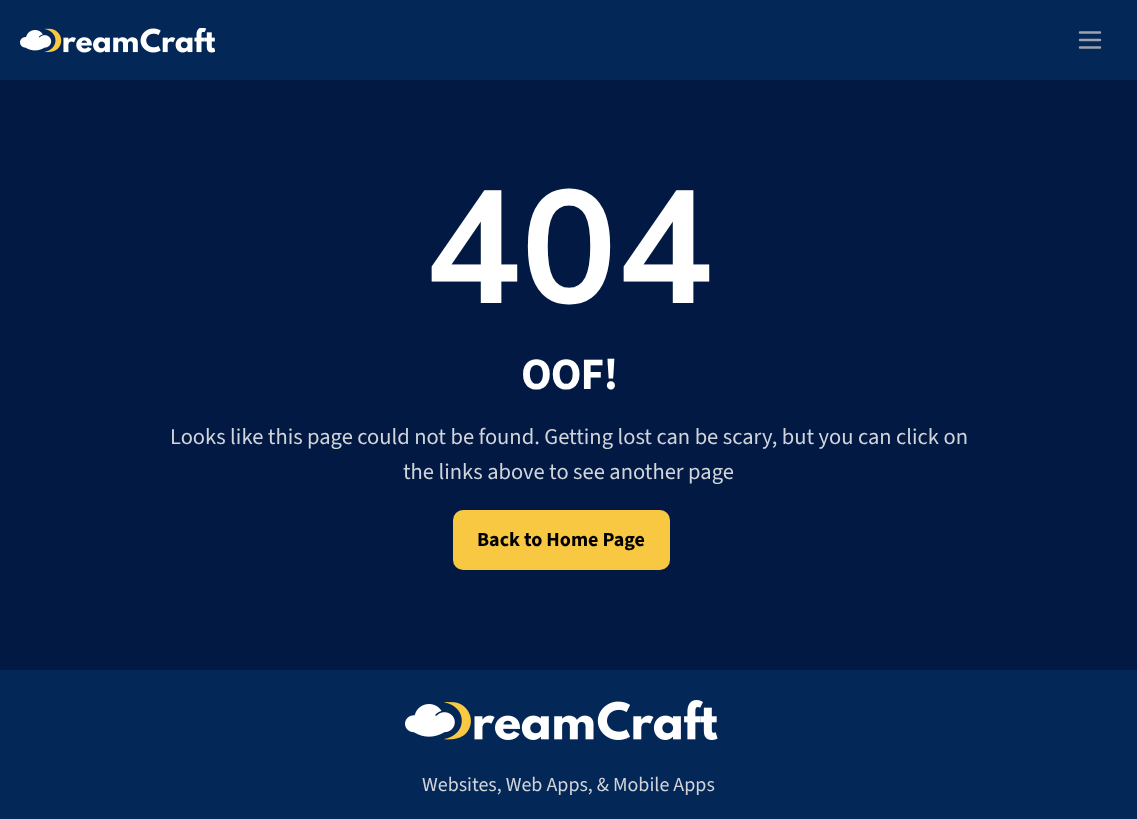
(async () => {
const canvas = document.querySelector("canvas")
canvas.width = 1137
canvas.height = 819
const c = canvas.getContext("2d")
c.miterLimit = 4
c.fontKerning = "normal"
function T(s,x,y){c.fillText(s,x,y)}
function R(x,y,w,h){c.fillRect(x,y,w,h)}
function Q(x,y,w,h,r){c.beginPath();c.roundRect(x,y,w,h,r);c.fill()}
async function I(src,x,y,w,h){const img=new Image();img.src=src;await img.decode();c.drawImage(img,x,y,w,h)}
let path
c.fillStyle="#021a43"
R(0,0,1137,819)
c.fillStyle="#032756"
R(0,0,1137,80)
await I("1.png",20,28,195,25)
path = new Path2D("M1080 32.5h20m-20 7.5h20m-20 7.5h20")
c.strokeStyle="#9ca3af"
c.lineWidth=2.5
c.lineCap="round"
c.lineJoin="round"
c.stroke(path)
c.font="bold 160px Nunito Sans"
c.fillStyle="#fff"
T("404",425,303)
c.letterSpacing="-1px"
c.font="bold 45px 'Source Sans 3'"
T("OOF!",521,389)
c.letterSpacing="0px"
c.font="22.5px 'Source Sans 3'"
c.fillStyle="#d1d5db"
T("Looks like this page could not be found. Getting lost can be scary, but you can click on",170,444)
T("the links above to see another page",403,479)
c.fillStyle="#f8c843"
Q(453,510,217,60,10)
c.font="bold 20px 'Source Sans 3'"
c.fillStyle="#000"
T("Back to Home Page",477,546)
c.fillStyle="#032756"
R(0,670,1137,149)
await I("2.png",405,700,313,40)
c.font="20px 'Source Sans 3'"
c.fillStyle="#d1d5db"
T("Websites, Web Apps, & Mobile Apps",422,791)
})()
